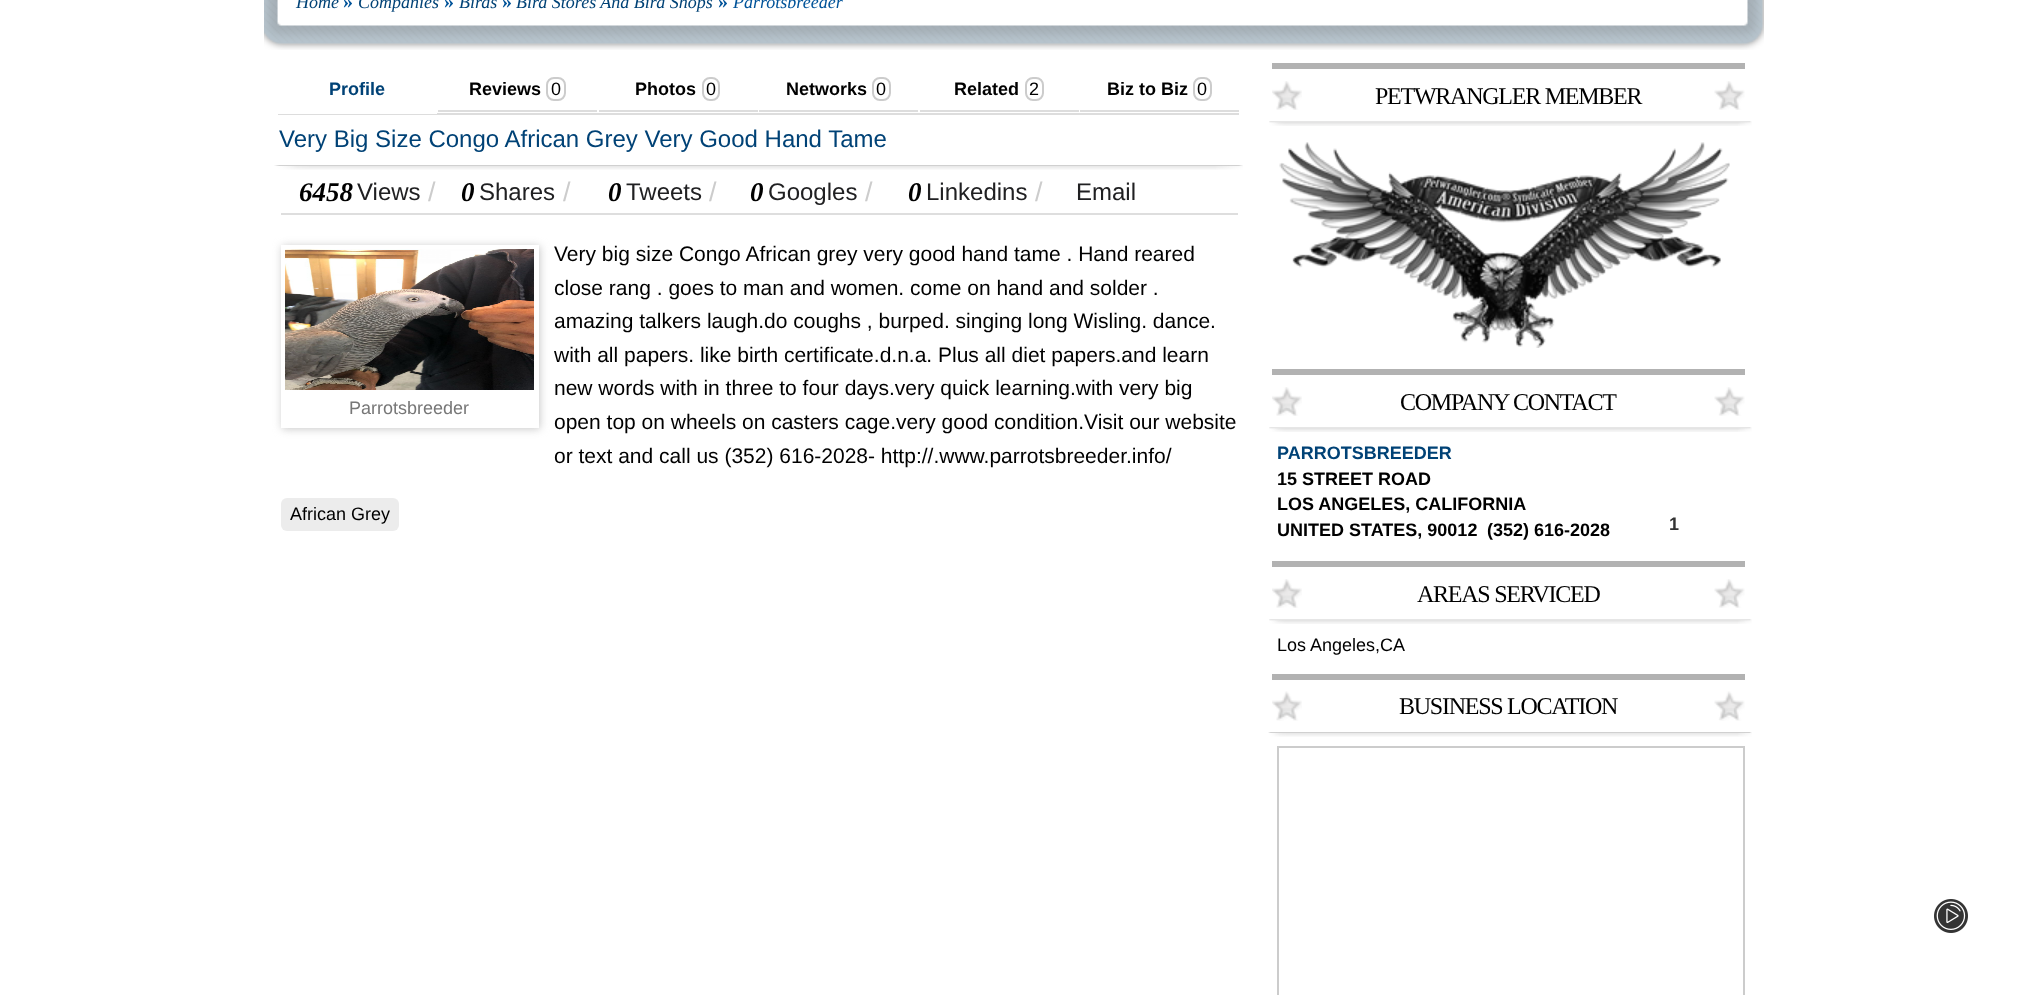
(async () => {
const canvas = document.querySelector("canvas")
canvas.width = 2027
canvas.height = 995
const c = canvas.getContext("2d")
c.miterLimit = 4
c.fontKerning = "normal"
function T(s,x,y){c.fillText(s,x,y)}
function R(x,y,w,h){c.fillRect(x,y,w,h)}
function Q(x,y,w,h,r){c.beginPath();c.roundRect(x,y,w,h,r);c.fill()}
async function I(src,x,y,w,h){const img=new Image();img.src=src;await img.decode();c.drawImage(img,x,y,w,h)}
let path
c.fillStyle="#fff"
R(0,0,2027,995)
await I("1.png",264,0,1500,50)
c.font="italic 18px Liberation Serif"
c.fillStyle="#004276"
T("Home",296,8)
c.font="bold 20px Liberation Serif"
c.fillStyle="#005399"
T("»",343,8)
c.font="italic 18px Liberation Serif"
c.fillStyle="#004276"
T("Companies",358,8)
c.font="bold 20px Liberation Serif"
c.fillStyle="#005399"
T("»",444,8)
c.font="italic 18px Liberation Serif"
c.fillStyle="#004276"
T("Birds",459,8)
c.font="bold 20px Liberation Serif"
c.fillStyle="#005399"
T("»",502,8)
c.font="italic 18px Liberation Serif"
c.fillStyle="#004276"
T("Bird Stores And Bird Shops",516,8)
c.font="bold 20px Liberation Serif"
c.fillStyle="#005399"
T("»",718,8)
c.font="italic 18px Liberation Serif"
T("Parrotsbreeder",733,8)
c.fillStyle="#ddd"
R(278,113,961,2)
c.fillStyle="#fff"
c.beginPath()
c.roundRect(278,63,159,51,[8,8,0,0])
c.fill()
c.font="bold 18px Liberation Sans"
c.fillStyle="#004276"
T("Profile",329,95)
c.fillStyle="#ddd"
R(438,110,159,2)
c.fillStyle="#000"
T("Reviews",469,95)
c.beginPath()
c.roundRect(547,78,18,22,7)
c.strokeStyle="#ccc"
c.lineWidth=2
c.stroke()
c.font="18px Liberation Sans"
T("0",551,95)
c.fillStyle="#ddd"
R(599,110,159,2)
c.font="bold 18px Liberation Sans"
c.fillStyle="#000"
T("Photos",635,95)
c.beginPath()
c.roundRect(703,78,16,22,7)
c.stroke()
c.font="18px Liberation Sans"
T("0",706,95)
c.fillStyle="#ddd"
R(759,110,159,2)
c.font="bold 18px Liberation Sans"
c.fillStyle="#000"
T("Networks",786,95)
c.beginPath()
c.roundRect(873,78,17,22,7)
c.stroke()
c.font="18px Liberation Sans"
T("0",876,95)
c.fillStyle="#ddd"
R(920,110,159,2)
c.font="bold 18px Liberation Sans"
c.fillStyle="#000"
T("Related",954,95)
c.beginPath()
c.roundRect(1026,78,17,22,7)
c.stroke()
c.font="18px Liberation Sans"
T("2",1029,95)
c.fillStyle="#ddd"
R(1080,110,159,2)
c.font="bold 18px Liberation Sans"
c.fillStyle="#000"
T("Biz to Biz",1107,95)
c.beginPath()
c.roundRect(1194,78,17,22,7)
c.stroke()
c.font="18px Liberation Sans"
T("0",1197,95)
c.font="24px Liberation Sans"
c.fillStyle="#004276"
T("Very Big Size Congo African Grey Very Good Hand Tame",279,147)
await I("2.png",274,165,969,5)
c.fillStyle="#dedede"
R(281,213,957,2)
c.font="italic bold 27px Liberation Serif"
c.fillStyle="#000"
T("6458",299,201)
c.font="24px Liberation Sans"
c.fillStyle="#202022"
T("Views",357,200)
c.font="27px Liberation Sans"
c.fillStyle="#ccc"
T("/",428,201)
c.font="italic bold 27px Liberation Serif"
c.fillStyle="#000"
T("0",461,201)
c.font="24px Liberation Sans"
c.fillStyle="#202022"
T("Shares",479,200)
c.font="27px Liberation Sans"
c.fillStyle="#ccc"
T("/",563,201)
c.font="italic bold 27px Liberation Serif"
c.fillStyle="#000"
T("0",608,201)
c.font="24px Liberation Sans"
c.fillStyle="#202022"
T("Tweets",626,200)
c.font="27px Liberation Sans"
c.fillStyle="#ccc"
T("/",709,201)
c.font="italic bold 27px Liberation Serif"
c.fillStyle="#000"
T("0",750,201)
c.font="24px Liberation Sans"
c.fillStyle="#202022"
T("Googles",768,200)
c.font="27px Liberation Sans"
c.fillStyle="#ccc"
T("/",865,201)
c.font="italic bold 27px Liberation Serif"
c.fillStyle="#000"
T("0",908,201)
c.font="24px Liberation Sans"
c.fillStyle="#202022"
T("Linkedins",926,200)
c.font="27px Liberation Sans"
c.fillStyle="#ccc"
T("/",1035,201)
c.font="24px Liberation Sans"
c.fillStyle="#202022"
T("Email",1076,200)
c.save()
path = new Path2D("M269 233h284v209h-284zm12 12h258v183h-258z")
c.clip(path,"evenodd")
c.fillStyle="#c8c8c8"
c.filter="blur(4px)"
c.beginPath()
c.rect(282,246,258,183)
c.fill()
c.filter="none"
c.restore()
await I("3.png",285,249,249,141)
c.font="18px Liberation Sans"
c.fillStyle="#777"
T("Parrotsbreeder",349,414)
c.font="21px Liberation Sans"
c.fillStyle="#000"
T("Very big size Congo African grey very good hand tame . Hand reared",554,261)
T("close rang . goes to man and women. come on hand and solder .",554,295)
T("amazing talkers laugh.do coughs , burped. singing long Wisling. dance.",554,328)
T("with all papers. like birth certificate.d.n.a. Plus all diet papers.and learn",554,362)
T("new words with in three to four days.very quick learning.with very big",554,395)
T("open top on wheels on casters cage.very good condition.Visit our website",554,429)
T("or text and call us (352) 616-2028- http://.www.parrotsbreeder.info/",554,463)
c.fillStyle="#ececec"
Q(281,498,118,33,6)
c.font="18px Liberation Sans"
c.fillStyle="#000"
T("African Grey",290,520)
c.fillStyle="#b2b2b2"
R(1272,63,473,6)
await I("4.png",1272,81,30,29)
c.letterSpacing="-1.25px"
c.font="24px Liberation Serif"
c.fillStyle="#000"
T("PETWRANGLER MEMBER",1375,104)
await I("5.png",1714,81,31,29)
await I("6.png",1269,121,483,5)
await I("7.png",1279,142,451,206)
c.fillStyle="#b2b2b2"
R(1272,369,473,6)
await I("4.png",1272,387,30,29)
c.fillStyle="#000"
T("COMPANY CONTACT",1400,410)
await I("5.png",1714,387,31,29)
await I("6.png",1269,427,483,5)
c.letterSpacing="0px"
c.font="bold 18px Liberation Sans"
c.fillStyle="#004276"
T("PARROTSBREEDER",1277,459)
c.fillStyle="#000"
T("15 STREET ROAD",1277,485)
T("LOS ANGELES, CALIFORNIA",1277,510)
T("UNITED STATES, 90012",1277,536)
T("(352) 616-2028",1487,536)
c.fillStyle="#333"
T("1",1669,530)
c.fillStyle="#b2b2b2"
R(1272,561,473,6)
await I("4.png",1272,579,30,29)
c.letterSpacing="-1.25px"
c.font="24px Liberation Serif"
c.fillStyle="#000"
T("AREAS SERVICED",1417,602)
await I("5.png",1714,579,31,29)
await I("6.png",1269,619,483,5)
c.letterSpacing="0px"
c.font="18px Liberation Sans"
T("Los Angeles,CA",1277,651)
c.fillStyle="#b2b2b2"
R(1272,674,473,6)
await I("8.png",1272,691,30,30)
c.letterSpacing="-1.25px"
c.font="24px Liberation Serif"
c.fillStyle="#000"
T("BUSINESS LOCATION",1399,714)
await I("9.png",1714,691,31,30)
await I("10.png",1268,732,484,5)
c.strokeRect(1278,747,466,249)
await I("11.png",1934,899,34,34)
})()
